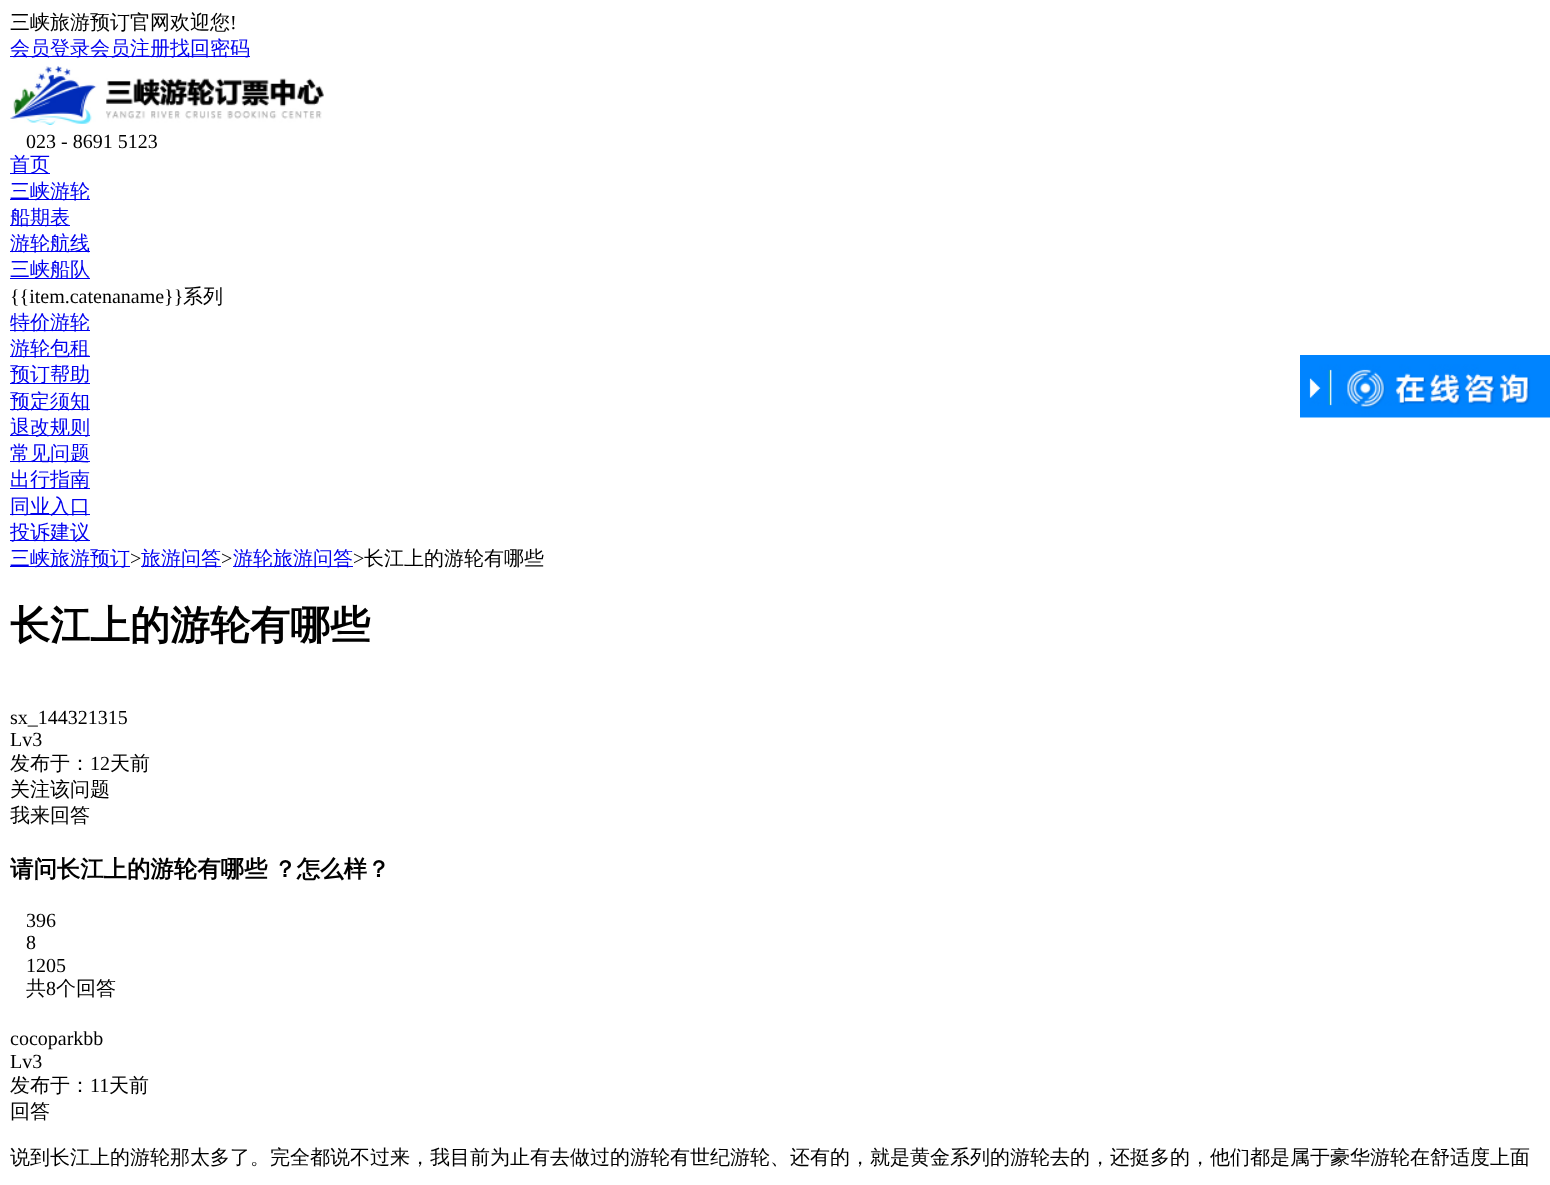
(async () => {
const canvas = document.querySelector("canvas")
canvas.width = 1550
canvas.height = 1185
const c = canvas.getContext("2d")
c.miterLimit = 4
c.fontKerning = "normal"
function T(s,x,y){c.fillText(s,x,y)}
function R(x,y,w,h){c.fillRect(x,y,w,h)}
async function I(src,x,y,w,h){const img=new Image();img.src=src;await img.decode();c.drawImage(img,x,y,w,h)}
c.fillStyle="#fff"
R(0,0,1550,1185)
c.font="500 20px WenQuanYi Zen Hei"
c.fillStyle="#000"
T("三峡旅游预订官网欢迎您",10,29)
c.font="20px Liberation Serif"
T("!",230,29)
c.fillStyle="#00e"
R(10,56,240,1)
c.font="500 20px WenQuanYi Zen Hei"
T("会员登录会员注册找回密码",10,55)
await I("1.png",10,66,314,59)
c.font="20px Liberation Serif"
c.fillStyle="#000"
T("023 - 8691 5123",26,148)
c.fillStyle="#00e"
R(10,173,40,1)
c.font="500 20px WenQuanYi Zen Hei"
T("首页",10,171)
R(10,199,80,1)
T("三峡游轮",10,198)
R(10,225,60,1)
T("船期表",10,224)
R(10,251,80,1)
T("游轮航线",10,250)
R(10,278,80,1)
T("三峡船队",10,276)
c.font="20px Liberation Serif"
c.fillStyle="#000"
T("{{item.catenaname}}",10,303)
c.font="500 20px WenQuanYi Zen Hei"
T("系列",183,303)
c.fillStyle="#00e"
R(10,330,80,1)
T("特价游轮",10,329)
R(10,356,80,1)
T("游轮包租",10,355)
R(10,383,80,1)
T("预订帮助",10,381)
R(10,409,80,1)
T("预定须知",10,408)
R(10,435,80,1)
T("退改规则",10,434)
R(10,461,80,1)
T("常见问题",10,460)
R(10,488,80,1)
T("出行指南",10,486)
R(10,514,80,1)
T("同业入口",10,513)
R(10,540,80,1)
T("投诉建议",10,539)
await I("2.png",1300,355,250,63)
R(10,566,120,1)
T("三峡旅游预订",10,565)
c.font="20px Liberation Serif"
c.fillStyle="#000"
T(">",130,565)
c.fillStyle="#00e"
R(141,566,80,1)
c.font="500 20px WenQuanYi Zen Hei"
T("旅游问答",141,565)
c.font="20px Liberation Serif"
c.fillStyle="#000"
T(">",221,565)
c.fillStyle="#00e"
R(233,566,120,1)
c.font="500 20px WenQuanYi Zen Hei"
T("游轮旅游问答",233,565)
c.font="20px Liberation Serif"
c.fillStyle="#000"
T(">",353,565)
c.font="500 20px WenQuanYi Zen Hei"
T("长江上的游轮有哪些",364,565)
c.font="bold 40px WenQuanYi Zen Hei"
T("长江上的游轮有哪些",10,639)
c.font="20px Liberation Serif"
T("sx_144321315",10,724)
T("Lv3",10,746)
c.font="500 20px WenQuanYi Zen Hei"
T("发布于：",10,770)
c.font="20px Liberation Serif"
T("12",90,770)
c.font="500 20px WenQuanYi Zen Hei"
T("天前",110,770)
T("关注该问题",10,796)
T("我来回答",10,822)
c.wordSpacing="-1px"
c.font="bold 23.4px WenQuanYi Zen Hei"
T("请问长江上的游轮有哪些 ？怎么样？",10,877)
c.wordSpacing="0px"
c.font="20px Liberation Serif"
T("396",26,927)
T("8",26,949)
T("1205",26,972)
c.font="500 20px WenQuanYi Zen Hei"
T("共",26,995)
c.font="20px Liberation Serif"
T("8",46,995)
c.font="500 20px WenQuanYi Zen Hei"
T("个回答",56,995)
c.font="20px Liberation Serif"
T("cocoparkbb",10,1045)
T("Lv3",10,1068)
c.font="500 20px WenQuanYi Zen Hei"
T("发布于：",10,1092)
c.font="20px Liberation Serif"
T("11",90,1092)
c.font="500 20px WenQuanYi Zen Hei"
T("天前",109,1092)
T("回答",10,1118)
T("说到长江上的游轮那太多了。完全都说不过来，我目前为止有去做过的游轮有世纪游轮、还有的，就是黄金系列的游轮去的，还挺多的，他们都是属于豪华游轮在舒适度上面",10,1164)
})()
